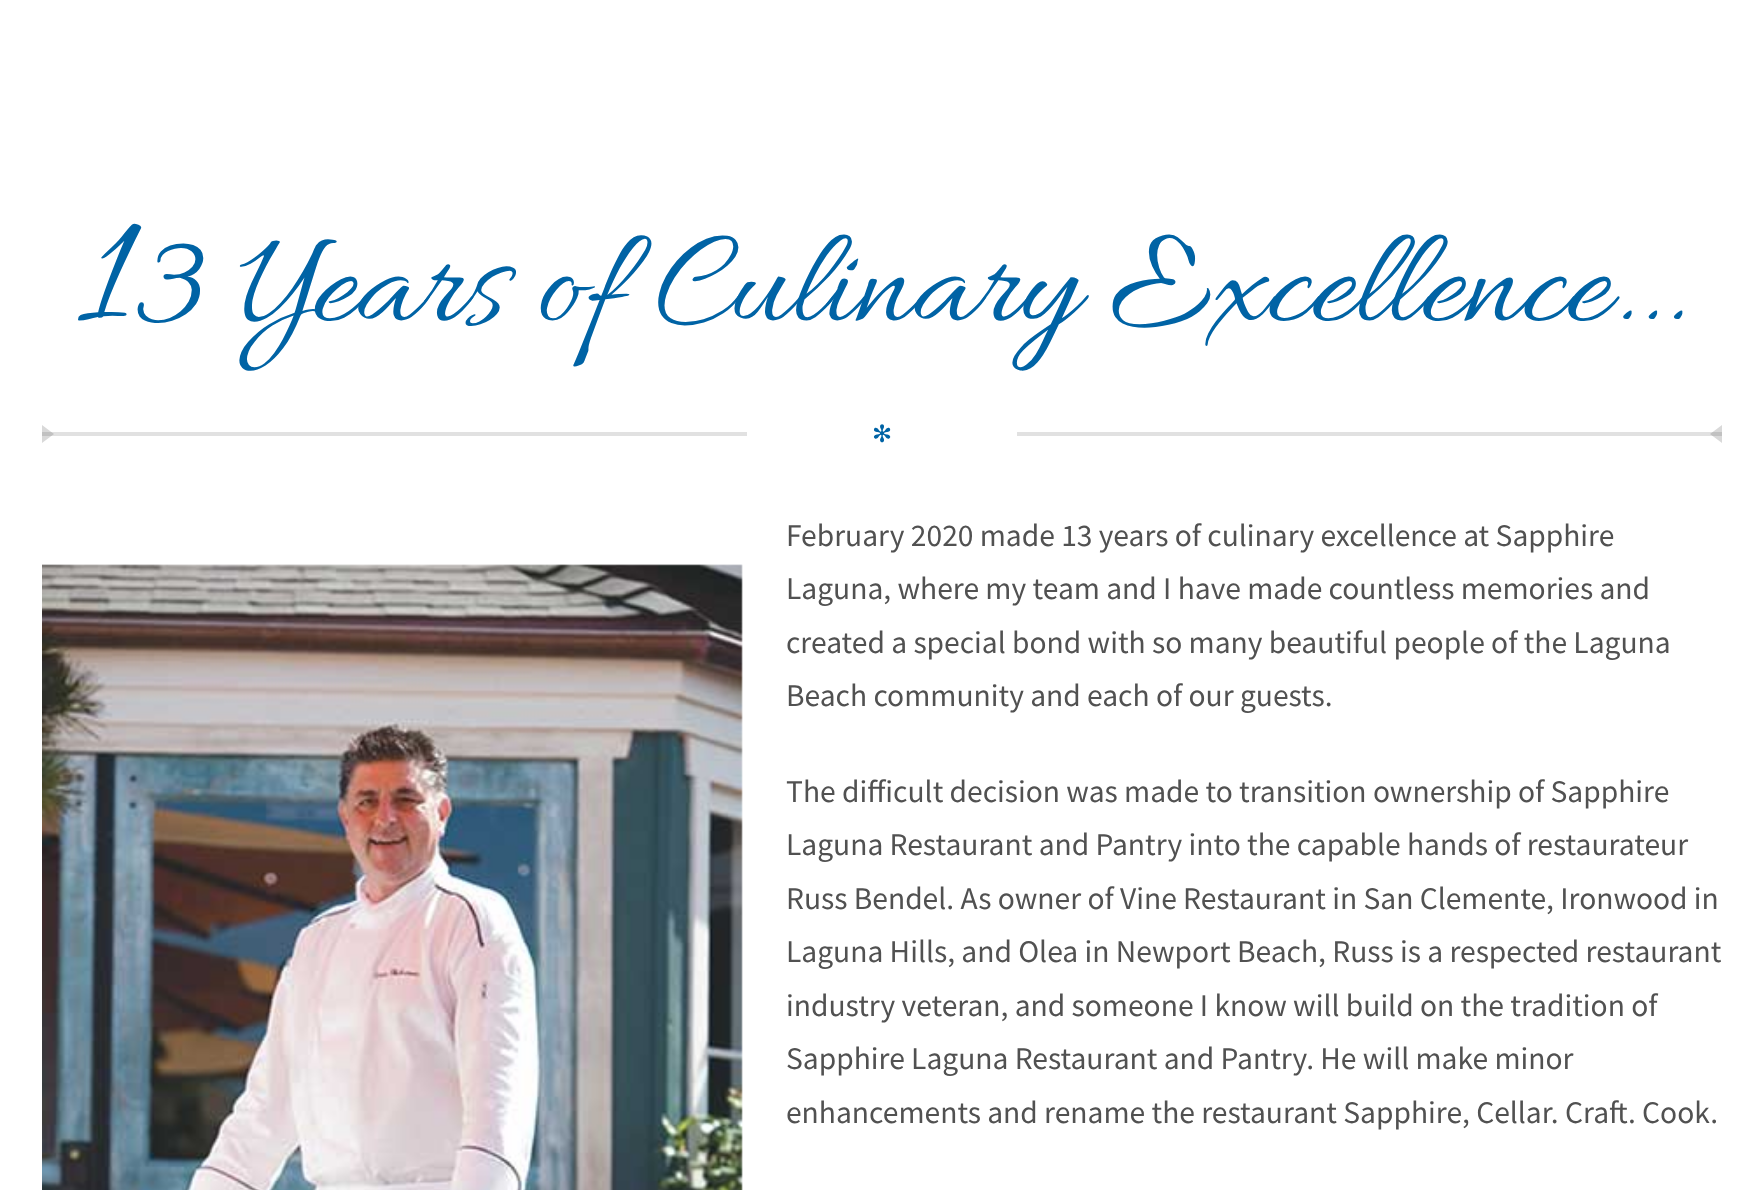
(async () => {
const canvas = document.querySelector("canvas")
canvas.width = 1763
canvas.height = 1190
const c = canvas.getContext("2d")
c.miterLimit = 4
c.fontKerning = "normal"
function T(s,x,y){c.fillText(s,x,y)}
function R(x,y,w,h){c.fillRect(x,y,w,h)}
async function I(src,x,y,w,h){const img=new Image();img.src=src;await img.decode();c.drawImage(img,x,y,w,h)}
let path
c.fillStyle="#fff"
R(0,0,1763,1190)
c.font="140px Allura"
c.fillStyle="#0063a5"
T("3 Years of Culinary Excellence...",132,319)
c.letterSpacing="126px"
c.font="171px Allura"
T("1",78,317)
c.letterSpacing="0px"
c.font="24px DejaVu Sans"
T("✻",872,442)
c.fillStyle="#e1e1e1"
R(42,432,705,4)
c.fillStyle="#51515138"
path = new Path2D("M42 443v-18l12 9z")
c.fill(path)
c.fillStyle="#e1e1e1"
R(1017,432,705,4)
c.fillStyle="#51515138"
path = new Path2D("M1722 425v18l-12-9z")
c.fill(path)
c.font="31.5px Source Sans Pro"
c.fillStyle="#515151"
T("February 2020 made 13 years of culinary excellence at Sapphire",786,546)
await I("1.png",42,564,701,626)
T("Laguna, where my team and I have made countless memories and",786,599)
T("created a special bond with so many beautiful people of the Laguna",786,653)
T("Beach community and each of our guests.",786,706)
T("The difficult decision was made to transition ownership of Sapphire",786,802)
T("Laguna Restaurant and Pantry into the capable hands of restaurateur",786,855)
T("Russ Bendel. As owner of Vine Restaurant in San Clemente, Ironwood in",786,909)
T("Laguna Hills, and Olea in Newport Beach, Russ is a respected restaurant",786,962)
T("industry veteran, and someone I know will build on the tradition of",786,1016)
T("Sapphire Laguna Restaurant and Pantry. He will make minor",786,1069)
T("enhancements and rename the restaurant Sapphire, Cellar. Craft. Cook.",786,1123)
})()
